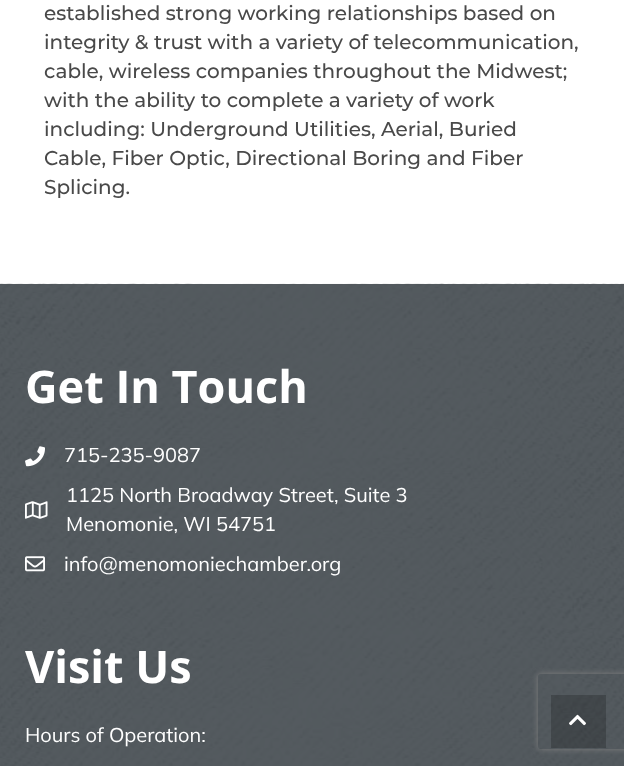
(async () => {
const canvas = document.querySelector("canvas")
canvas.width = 624
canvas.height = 766
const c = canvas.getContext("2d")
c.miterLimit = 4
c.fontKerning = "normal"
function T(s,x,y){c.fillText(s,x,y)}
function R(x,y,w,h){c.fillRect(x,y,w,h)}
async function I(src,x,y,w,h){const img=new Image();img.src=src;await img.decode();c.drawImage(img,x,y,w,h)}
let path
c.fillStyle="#fff"
R(0,0,624,766)
c.font="500 20px Montserrat"
c.fillStyle="#494949"
T("established strong working relationships based on",44,20)
T("integrity & trust with a variety of telecommunication,",44,49)
T("cable, wireless companies throughout the Midwest;",44,78)
T("with the ability to complete a variety of work",44,107)
T("including: Underground Utilities, Aerial, Buried",44,136)
T("Cable, Fiber Optic, Directional Boring and Fiber",44,165)
T("Splicing.",44,194)
await I("1.png",0,283,624,483)
c.font="bold 45px Open Sans"
c.fillStyle="#fff"
T("Get In Touch",25,403)
await I("2.png",25,446,20,21)
c.font="20px Mulish"
T("715-235-9087",64,462)
await I("3.png",25,501,23,18)
T("1125 North Broadway Street, Suite 3",66,502)
T("Menomonie, WI 54751",66,531)
await I("4.png",25,556,20,16)
T("info@menomoniechamber.org",64,571)
c.font="bold 45px Open Sans"
T("Visit Us",25,683)
c.font="20px Mulish"
T("Hours of Operation:",25,742)
c.save()
path = new Path2D("M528 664h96v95h-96zm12.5 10h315c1.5 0 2.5 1 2.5 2.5v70c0 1.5-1 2.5-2.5 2.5h-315c-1.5 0-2.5-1-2.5-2.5v-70c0-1.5 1-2.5 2.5-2.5z")
c.clip(path,"evenodd")
c.fillStyle="#808080"
c.filter="blur(3px)"
c.beginPath()
c.roundRect(538,674,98,75,2.5)
c.fill()
c.filter="none"
c.restore()
c.fillStyle="#00000033"
R(551,695,55,53)
await I("5.png",569,714,17,12)
})()
